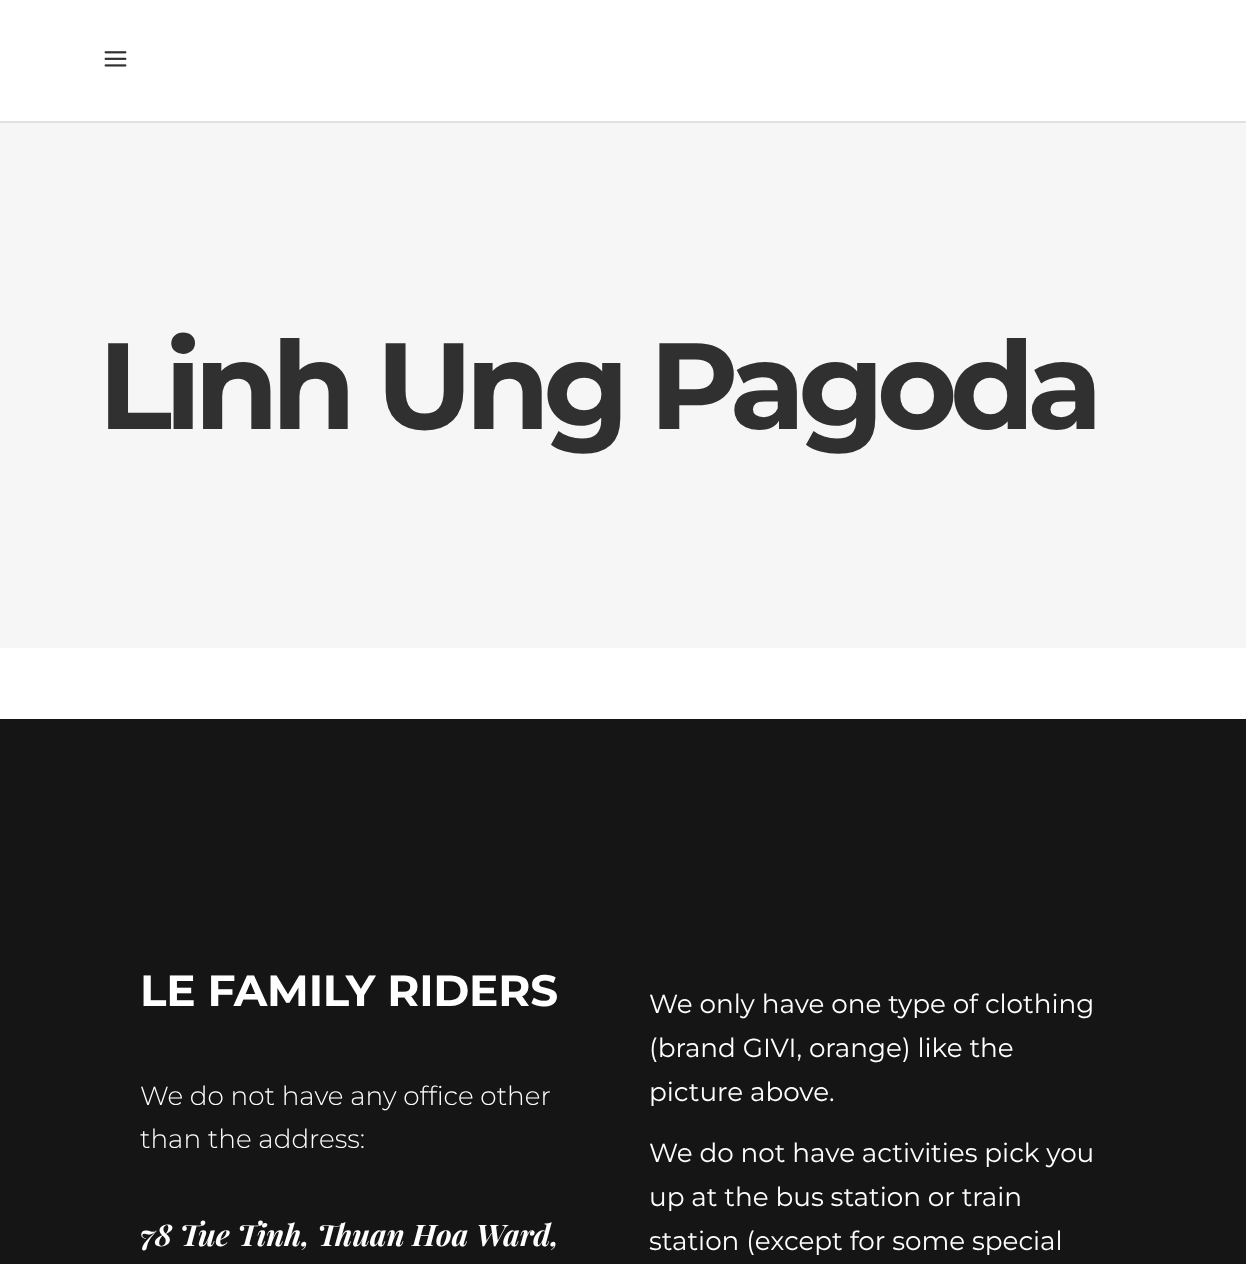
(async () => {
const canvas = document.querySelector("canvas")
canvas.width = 1246
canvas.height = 1264
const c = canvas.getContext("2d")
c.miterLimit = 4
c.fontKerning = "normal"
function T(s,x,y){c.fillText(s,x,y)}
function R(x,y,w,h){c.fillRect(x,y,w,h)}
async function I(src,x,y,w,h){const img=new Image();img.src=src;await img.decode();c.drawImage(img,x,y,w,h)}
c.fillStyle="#fff"
R(0,0,1246,1264)
c.fillStyle="#e1e1e1"
R(0,121,1246,2)
await I("1.png",104,51,23,16)
c.fillStyle="#f6f6f6"
R(0,123,1246,525)
c.letterSpacing="-7.3px"
c.font="bold 122.5px Montserrat"
c.fillStyle="#303030"
T("Linh Ung Pagoda",98,429)
c.fillStyle="#151515"
R(0,719,1246,545)
c.letterSpacing="-0.25px"
c.font="bold 43.75px Montserrat"
c.fillStyle="#fff"
T("LE FAMILY RIDERS",140,1006)
c.letterSpacing="0px"
c.font="300 26.25px Montserrat"
T("We do not have any office other",140,1105)
T("than the address:",140,1148)
c.font="italic bold 29.75px Playfair Display"
T("78 Tue Tinh, Thuan Hoa Ward,",140,1246)
c.font="26.25px Montserrat"
T("We only have one type of clothing",649,1013)
T("(brand GIVI, orange) like the",649,1057)
T("picture above.",649,1101)
T("We do not have activities pick you",649,1162)
T("up at the bus station or train",649,1206)
T("station (except for some special",649,1250)
})()
